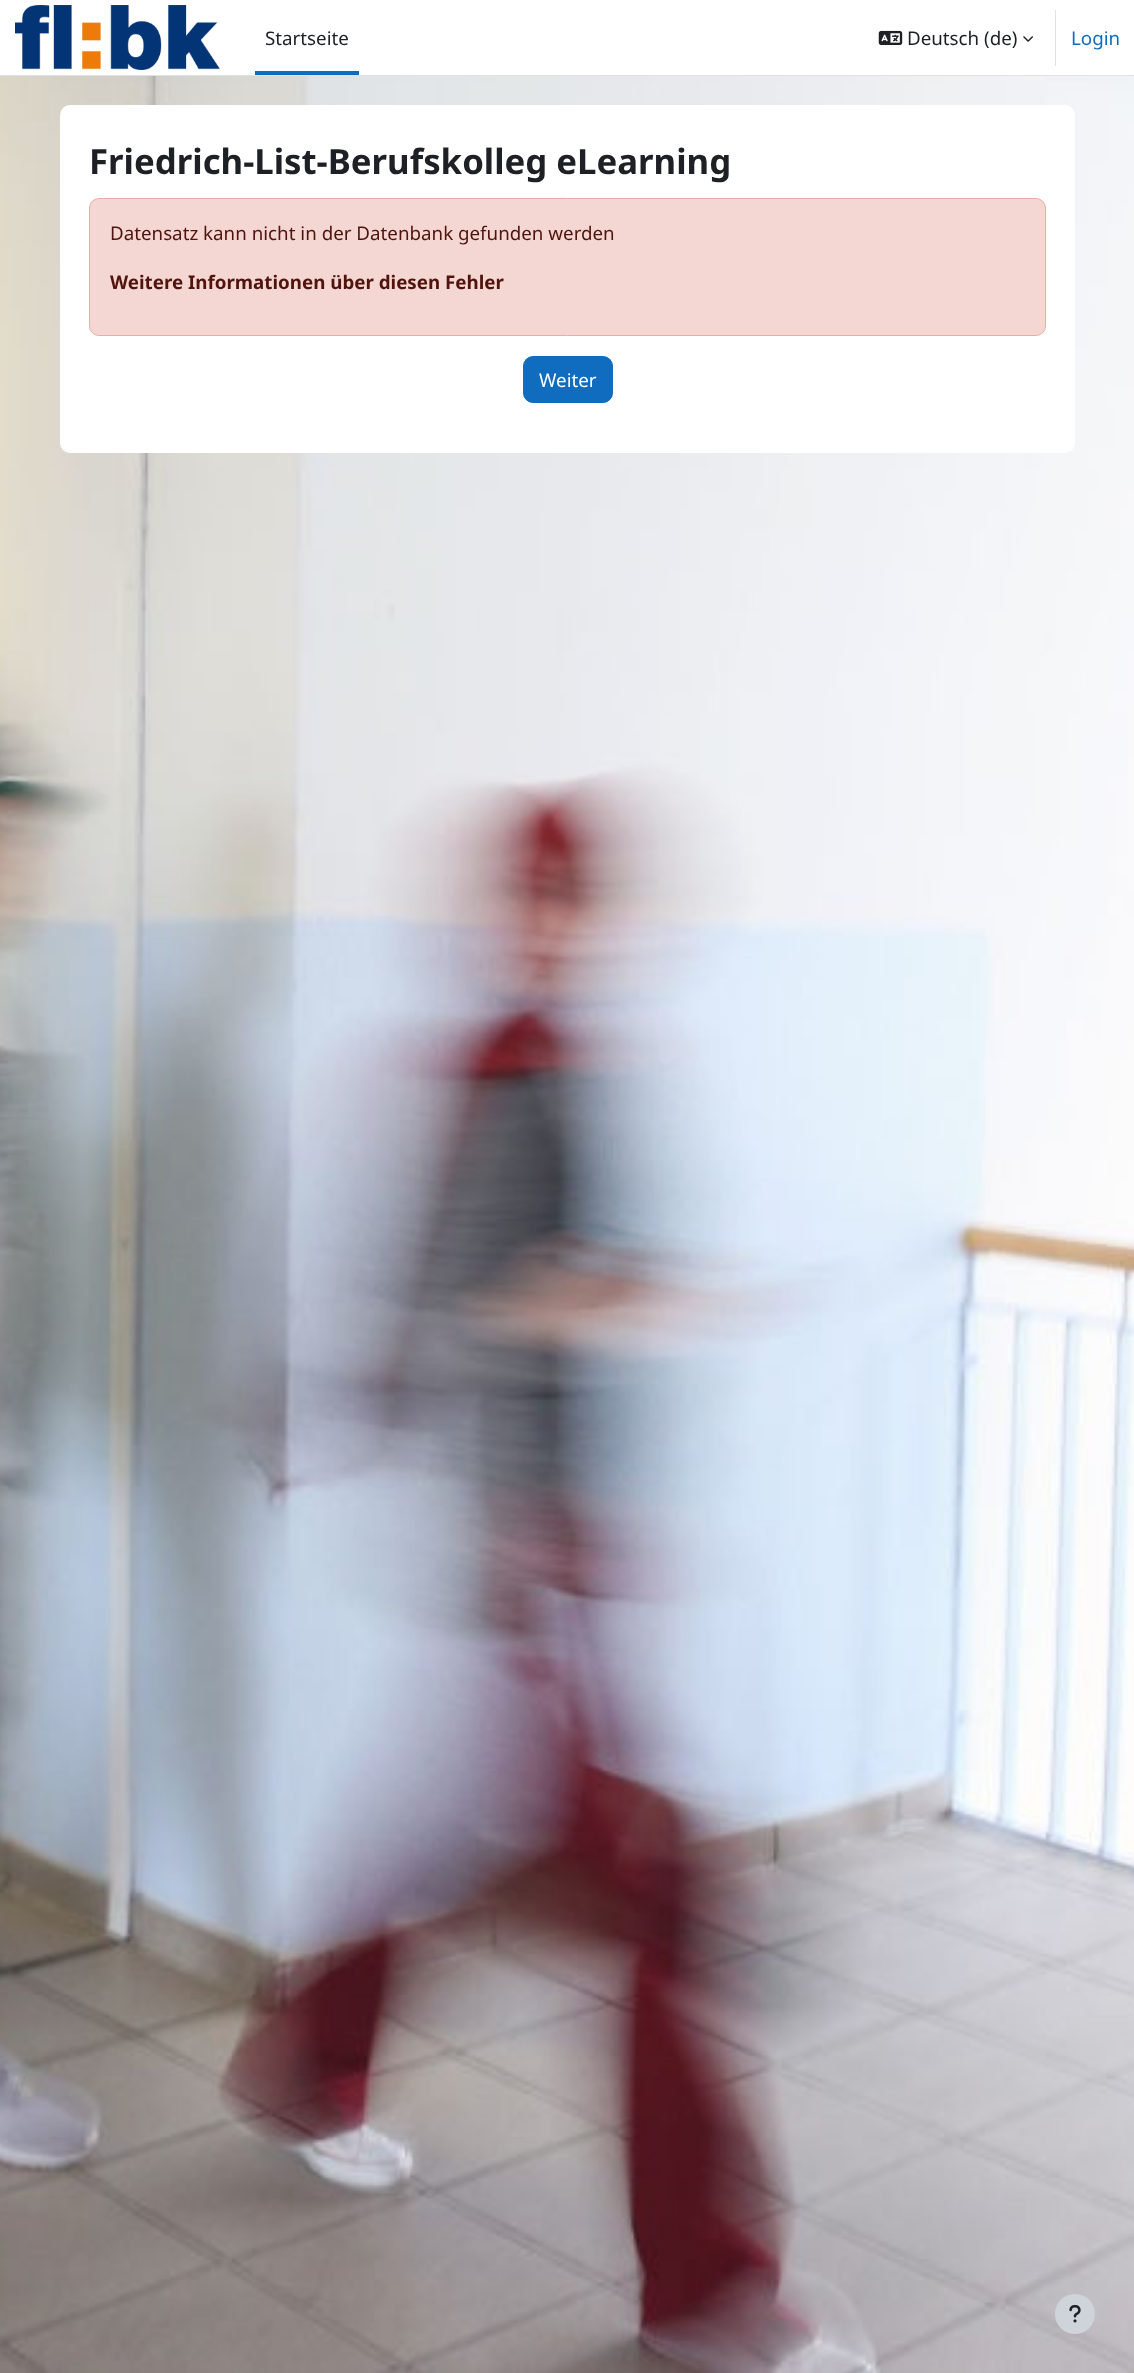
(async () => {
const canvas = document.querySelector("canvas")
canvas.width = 1134
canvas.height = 2373
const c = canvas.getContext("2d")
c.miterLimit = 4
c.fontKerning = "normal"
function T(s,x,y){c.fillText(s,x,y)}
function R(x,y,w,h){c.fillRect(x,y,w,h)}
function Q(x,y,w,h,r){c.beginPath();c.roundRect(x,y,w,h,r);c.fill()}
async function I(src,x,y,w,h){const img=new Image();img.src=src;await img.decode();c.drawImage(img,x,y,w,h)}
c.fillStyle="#fff"
R(0,0,1134,2373)
await I("1.png",0,76,1134,2297)
c.fillStyle="#dee2e6"
R(0,75,1134,1)
await I("2.png",15,5,205,65)
c.fillStyle="#0f6cbf"
R(255,71,104,4)
c.font="18.75px Noto Sans"
c.fillStyle="#1d2125"
T("Startseite",265,45)
await I("3.png",878,30,25,15)
T("Deutsch (de)",907,45)
await I("4.png",1023,36,10,6)
c.fillStyle="#dee2e6"
R(1055,10,1,56)
c.fillStyle="#0f6cbf"
T("Login",1071,45)
c.fillStyle="#fff"
Q(60,105,1015,348,10)
c.font="bold 34.75px Noto Sans"
c.fillStyle="#1d2125"
T("Friedrich-List-Berufskolleg eLearning",89,174)
c.fillStyle="#f4d6d2"
c.beginPath()
c.roundRect(89.5,198.5,956,137,9.5)
c.fill()
c.strokeStyle="#eaada6"
c.stroke()
c.font="18.75px Noto Sans"
c.fillStyle="#51140d"
T("Datensatz kann nicht in der Datenbank gefunden werden",110,240)
c.font="bold 18.75px Noto Sans"
T("Weitere Informationen über diesen Fehler",110,289)
c.fillStyle="#0f6cbf"
c.beginPath()
c.roundRect(523.5,356.5,89,46,9.5)
c.fill()
c.strokeStyle="#0f6cbf"
c.stroke()
c.font="18.75px Noto Sans"
c.fillStyle="#fff"
T("Weiter",539,387)
c.fillStyle="#ced4da"
c.beginPath()
c.arc(1075,2314,20,0,7)
c.fill()
await I("5.png",1069,2305,12,18)
})()
